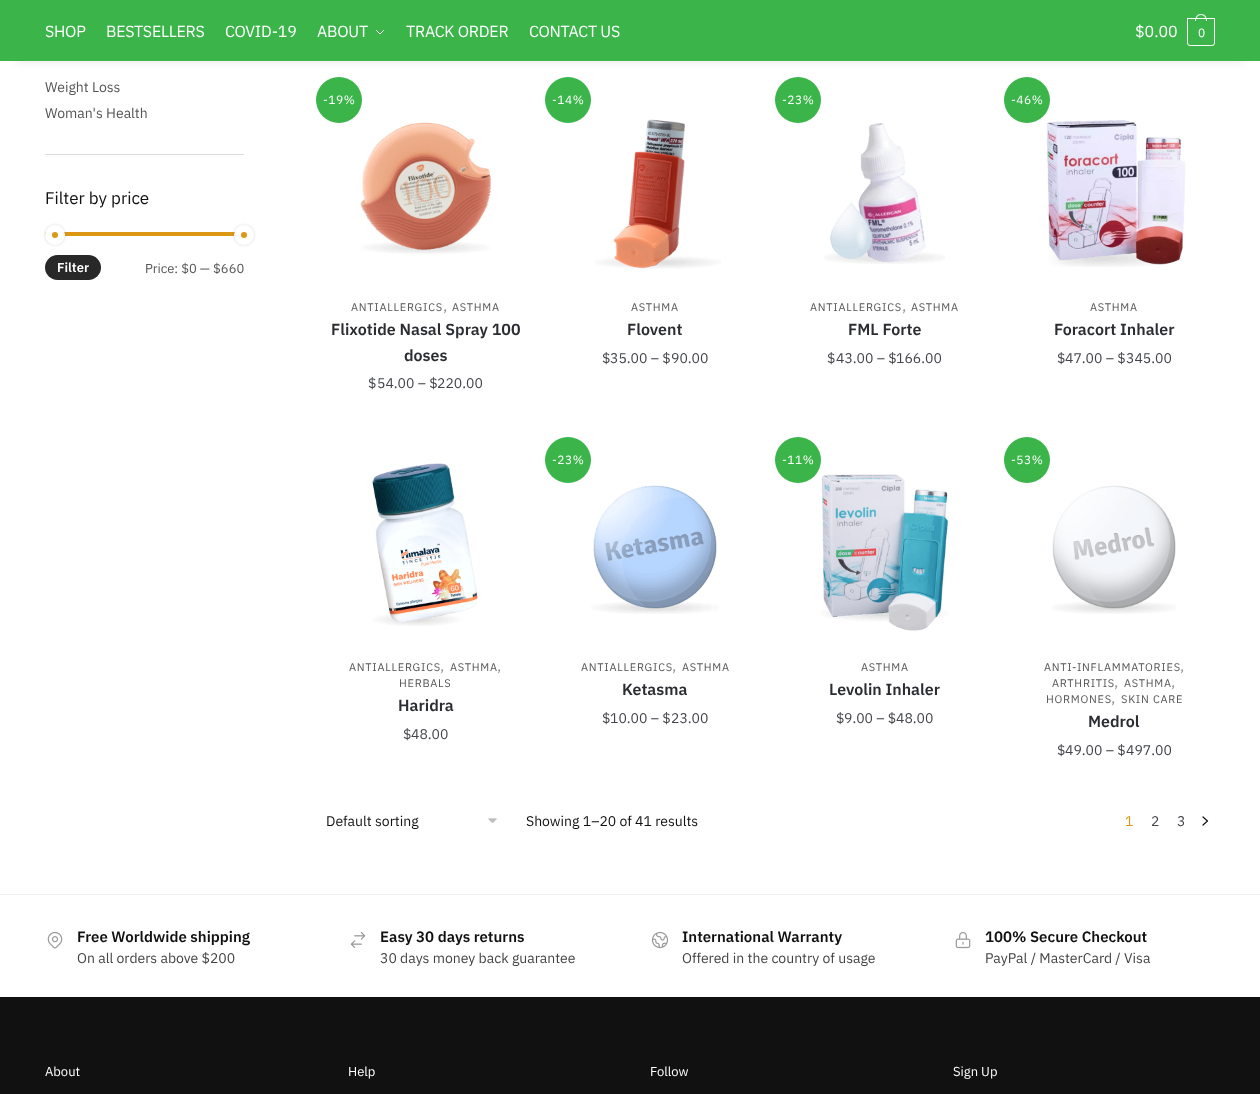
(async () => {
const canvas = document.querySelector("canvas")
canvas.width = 1260
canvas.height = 1094
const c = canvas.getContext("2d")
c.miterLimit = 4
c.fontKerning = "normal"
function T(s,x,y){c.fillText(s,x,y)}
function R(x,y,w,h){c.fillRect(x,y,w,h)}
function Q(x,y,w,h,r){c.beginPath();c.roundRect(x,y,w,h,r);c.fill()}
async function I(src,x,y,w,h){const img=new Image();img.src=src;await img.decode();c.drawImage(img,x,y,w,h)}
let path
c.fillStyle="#fff"
R(0,0,1260,1094)
c.fillStyle="#0000001a"
c.filter="blur(5px)"
c.beginPath()
c.rect(15,30,1230,31)
c.fill()
c.filter="none"
c.fillStyle="#3bb54a"
R(0,0,1260,61)
c.letterSpacing="-0.25px"
c.font="16px IBM Plex Sans"
c.fillStyle="#fff"
T("SHOP",45,37)
T("BESTSELLERS",106,37)
T("COVID-19",225,37)
T("ABOUT",317,37)
path = new Path2D("M383.5 30.5l-3.5 3.5l-3.5-3.5")
c.strokeStyle="#fff"
c.lineCap="round"
c.lineJoin="round"
c.stroke(path)
T("TRACK ORDER",406,37)
T("CONTACT US",529,37)
c.letterSpacing="0px"
T("$0.00",1135,37)
c.beginPath()
c.roundRect(1187.5,18.5,27,27,[0,0,2.5,2.5])
c.lineJoin="miter"
c.stroke()
path = new Path2D("M1201 14c4 0 6 3.5 6 7h-12c0-3.5 2-7 6-7zm0 1c3.5 0 5 3 5 6h-10c0-3 1.5-6 5-6z")
c.fill(path,"evenodd")
c.letterSpacing="-1px"
c.font="12px IBM Plex Sans"
T("0",1198,37)
c.fillStyle="#ddd"
R(45,154,199,1)
c.letterSpacing="0px"
c.font="14px IBM Plex Sans"
c.fillStyle="#555"
T("Weight Loss",45,92)
T("Woman's Health",45,118)
c.font="17px IBM Plex Sans"
c.fillStyle="#111"
T("Filter by price",45,204)
c.fillStyle="#dc9814"
Q(45,232,199,4,2)
c.fillStyle="#00000026"
c.filter="blur(1.5px)"
c.beginPath()
c.roundRect(45,225,20,20,10)
c.fill()
c.filter="none"
c.fillStyle="#dc9814"
c.beginPath()
c.arc(55,235,6.5,0,7)
c.fill()
c.lineWidth=7
c.stroke()
c.fillStyle="#00000026"
c.filter="blur(1.5px)"
c.beginPath()
c.roundRect(234,225,20,20,10)
c.fill()
c.filter="none"
c.fillStyle="#dc9814"
c.beginPath()
c.arc(244,235,6.5,0,7)
c.fill()
c.stroke()
c.fillStyle="#282828"
Q(45,255,56,25,12.5)
c.font="600 13px IBM Plex Sans"
c.fillStyle="#fff"
T("Filter",57,272)
c.font="13px IBM Plex Sans"
c.fillStyle="#555"
T("Price: $0 — $660",145,273)
await I("1.png",360,122,131,132)
c.fillStyle="#3bb54a"
c.beginPath()
c.arc(339,100,23,0,7)
c.fill()
c.letterSpacing="0.5px"
c.font="12px IBM Plex Sans"
c.fillStyle="#fff"
T("-19%",323,104)
c.letterSpacing="0.75px"
c.font="11px IBM Plex Sans"
c.fillStyle="#555"
T("ANTIALLERGICS",351,311)
c.font="16px IBM Plex Sans"
c.fillStyle="#999"
T(",",443,311)
c.font="11px IBM Plex Sans"
c.fillStyle="#555"
T("ASTHMA",452,311)
c.letterSpacing="0px"
c.font="600 16px IBM Plex Sans"
c.fillStyle="#2c2d33"
T("Flixotide Nasal Spray 100",331,335)
T("doses",404,361)
c.font="14px IBM Plex Sans"
c.fillStyle="#43454b"
T("$",368,388)
T("54.00 – $",377,388)
T("220.00",437,388)
c.fillStyle="#3bb54a"
c.beginPath()
c.arc(568,100,23,0,7)
c.fill()
c.letterSpacing="0.5px"
c.font="12px IBM Plex Sans"
c.fillStyle="#fff"
T("-14%",552,104)
await I("2.png",595,119,126,150)
c.letterSpacing="0.75px"
c.font="11px IBM Plex Sans"
c.fillStyle="#555"
T("ASTHMA",631,311)
c.letterSpacing="0px"
c.font="600 16px IBM Plex Sans"
c.fillStyle="#2c2d33"
T("Flovent",627,335)
c.font="14px IBM Plex Sans"
c.fillStyle="#43454b"
T("$",602,363)
T("35.00 – $",610,363)
T("90.00",671,363)
c.fillStyle="#3bb54a"
c.beginPath()
c.arc(798,100,23,0,7)
c.fill()
c.letterSpacing="0.5px"
c.font="12px IBM Plex Sans"
c.fillStyle="#fff"
T("-23%",782,104)
await I("3.png",824,123,121,141)
c.letterSpacing="0.75px"
c.font="11px IBM Plex Sans"
c.fillStyle="#555"
T("ANTIALLERGICS",810,311)
c.font="16px IBM Plex Sans"
c.fillStyle="#999"
T(",",902,311)
c.font="11px IBM Plex Sans"
c.fillStyle="#555"
T("ASTHMA",911,311)
c.letterSpacing="0px"
c.font="600 16px IBM Plex Sans"
c.fillStyle="#2c2d33"
T("FML Forte",848,335)
c.font="14px IBM Plex Sans"
c.fillStyle="#43454b"
T("$",827,363)
T("43.00 – $",836,363)
T("166.00",896,363)
await I("4.png",1046,120,140,147)
c.fillStyle="#3bb54a"
c.beginPath()
c.arc(1027,100,23,0,7)
c.fill()
c.letterSpacing="0.5px"
c.font="12px IBM Plex Sans"
c.fillStyle="#fff"
T("-46%",1011,104)
c.letterSpacing="0.75px"
c.font="11px IBM Plex Sans"
c.fillStyle="#555"
T("ASTHMA",1090,311)
c.letterSpacing="0px"
c.font="600 16px IBM Plex Sans"
c.fillStyle="#2c2d33"
T("Foracort Inhaler",1054,335)
c.font="14px IBM Plex Sans"
c.fillStyle="#43454b"
T("$",1057,363)
T("47.00 – $",1065,363)
T("345.00",1126,363)
await I("5.png",372,463,106,163)
c.letterSpacing="0.75px"
c.font="11px IBM Plex Sans"
c.fillStyle="#555"
T("ANTIALLERGICS",349,671)
c.font="16px IBM Plex Sans"
c.fillStyle="#999"
T(",",440,671)
c.font="11px IBM Plex Sans"
c.fillStyle="#555"
T("ASTHMA",450,671)
c.font="16px IBM Plex Sans"
c.fillStyle="#999"
T(",",497,671)
c.font="11px IBM Plex Sans"
c.fillStyle="#555"
T("HERBALS",399,687)
c.letterSpacing="0px"
c.font="600 16px IBM Plex Sans"
c.fillStyle="#2c2d33"
T("Haridra",398,711)
c.font="14px IBM Plex Sans"
c.fillStyle="#43454b"
T("$",403,739)
T("48.00",411,739)
c.fillStyle="#3bb54a"
c.beginPath()
c.arc(568,460,23,0,7)
c.fill()
c.letterSpacing="0.5px"
c.font="12px IBM Plex Sans"
c.fillStyle="#fff"
T("-23%",552,464)
await I("6.png",591,485,128,129)
c.letterSpacing="0.75px"
c.font="11px IBM Plex Sans"
c.fillStyle="#555"
T("ANTIALLERGICS",581,671)
c.font="16px IBM Plex Sans"
c.fillStyle="#999"
T(",",672,671)
c.font="11px IBM Plex Sans"
c.fillStyle="#555"
T("ASTHMA",682,671)
c.letterSpacing="0px"
c.font="600 16px IBM Plex Sans"
c.fillStyle="#2c2d33"
T("Ketasma",622,695)
c.font="14px IBM Plex Sans"
c.fillStyle="#43454b"
T("$",602,723)
T("10.00 – $",610,723)
T("23.00",671,723)
c.fillStyle="#3bb54a"
c.beginPath()
c.arc(798,460,23,0,7)
c.fill()
c.letterSpacing="0.5px"
c.font="12px IBM Plex Sans"
c.fillStyle="#fff"
T("-11%",782,464)
await I("7.png",821,474,128,157)
c.letterSpacing="0.75px"
c.font="11px IBM Plex Sans"
c.fillStyle="#555"
T("ASTHMA",861,671)
c.letterSpacing="0px"
c.font="600 16px IBM Plex Sans"
c.fillStyle="#2c2d33"
T("Levolin Inhaler",829,695)
c.font="14px IBM Plex Sans"
c.fillStyle="#43454b"
T("$",836,723)
T("9.00 – $",844,723)
T("48.00",896,723)
c.fillStyle="#3bb54a"
c.beginPath()
c.arc(1027,460,23,0,7)
c.fill()
c.letterSpacing="0.5px"
c.font="12px IBM Plex Sans"
c.fillStyle="#fff"
T("-53%",1011,464)
await I("8.png",1052,485,124,129)
c.letterSpacing="0.75px"
c.font="11px IBM Plex Sans"
c.fillStyle="#555"
T("ANTI-INFLAMMATORIES",1044,671)
c.font="16px IBM Plex Sans"
c.fillStyle="#999"
T(",",1180,671)
c.font="11px IBM Plex Sans"
c.fillStyle="#555"
T("ARTHRITIS",1052,687)
c.font="16px IBM Plex Sans"
c.fillStyle="#999"
T(",",1114,687)
c.font="11px IBM Plex Sans"
c.fillStyle="#555"
T("ASTHMA",1124,687)
c.font="16px IBM Plex Sans"
c.fillStyle="#999"
T(",",1171,687)
c.font="11px IBM Plex Sans"
c.fillStyle="#555"
T("HORMONES",1046,703)
c.font="16px IBM Plex Sans"
c.fillStyle="#999"
T(",",1111,703)
c.font="11px IBM Plex Sans"
c.fillStyle="#555"
T("SKIN CARE",1121,703)
c.letterSpacing="0px"
c.font="600 16px IBM Plex Sans"
c.fillStyle="#2c2d33"
T("Medrol",1088,727)
c.font="14px IBM Plex Sans"
c.fillStyle="#43454b"
T("$",1057,755)
T("49.00 – $",1065,755)
T("497.00",1126,755)
await I("9.png",488,818,9,6)
c.fillStyle="#111"
T("Default sorting",326,826)
T("Showing 1–20 of 41 results",526,826)
c.fillStyle="#dc9814"
T("1",1125,826)
c.fillStyle="#43454b"
T("2",1151,826)
T("3",1177,826)
path = new Path2D("M1203 817l4.5 4l-4.5 4")
c.strokeStyle="#111"
c.lineWidth=1.2
c.lineJoin="round"
c.stroke(path)
c.fillStyle="#eee"
R(0,894,1260,1)
c.font="600 15px IBM Plex Sans"
c.fillStyle="#111"
T("Free Worldwide shipping",77,942)
await I("10.png",47,931,16,18)
c.font="14px IBM Plex Sans"
c.fillStyle="#444"
T("On all orders above $200",77,963)
c.font="600 15px IBM Plex Sans"
c.fillStyle="#111"
T("Easy 30 days returns",380,942)
await I("11.png",350,932,16,16)
c.font="14px IBM Plex Sans"
c.fillStyle="#444"
T("30 days money back guarantee",380,963)
c.font="600 15px IBM Plex Sans"
c.fillStyle="#111"
T("International Warranty",682,942)
await I("12.png",651,931,18,18)
c.font="14px IBM Plex Sans"
c.fillStyle="#444"
T("Offered in the country of usage",682,963)
c.font="600 15px IBM Plex Sans"
c.fillStyle="#111"
T("100% Secure Checkout",985,942)
await I("13.png",955,932,16,17)
c.font="14px IBM Plex Sans"
c.fillStyle="#444"
T("PayPal / MasterCard / Visa",985,963)
c.fillStyle="#111"
R(0,997,1260,97)
c.font="13px IBM Plex Sans"
c.fillStyle="#fff"
T("About",45,1076)
T("Help",348,1076)
T("Follow",650,1076)
T("Sign Up",953,1076)
})()
